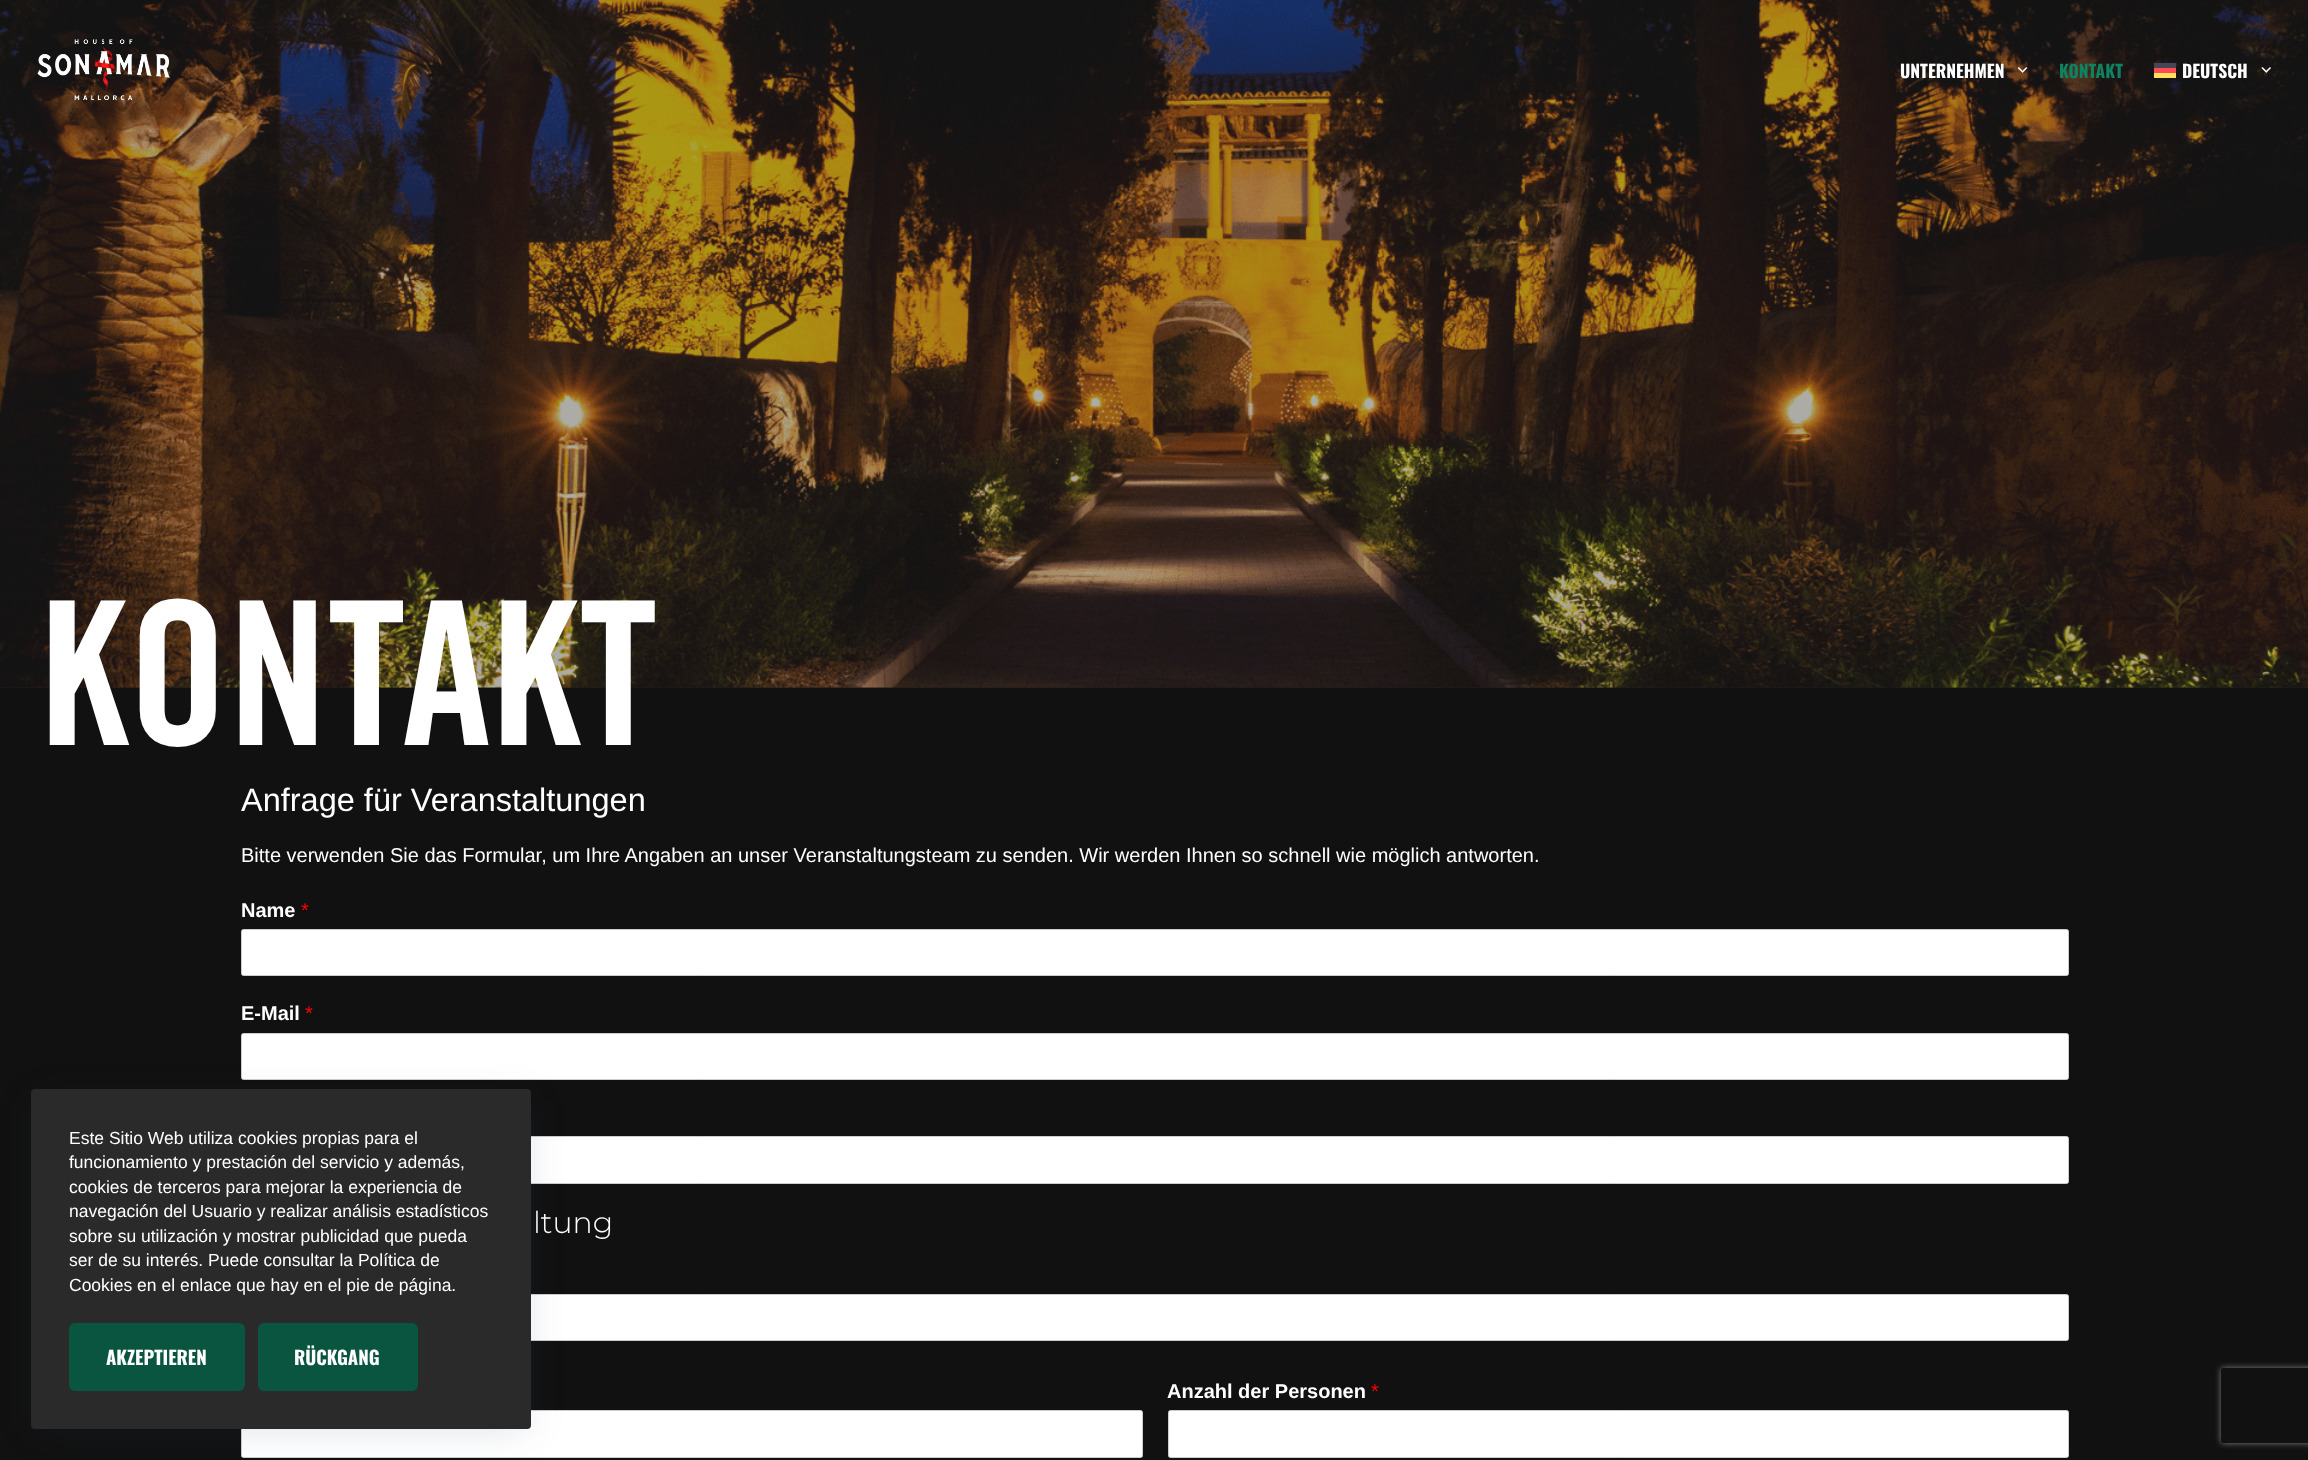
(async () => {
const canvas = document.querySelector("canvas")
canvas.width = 2308
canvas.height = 1460
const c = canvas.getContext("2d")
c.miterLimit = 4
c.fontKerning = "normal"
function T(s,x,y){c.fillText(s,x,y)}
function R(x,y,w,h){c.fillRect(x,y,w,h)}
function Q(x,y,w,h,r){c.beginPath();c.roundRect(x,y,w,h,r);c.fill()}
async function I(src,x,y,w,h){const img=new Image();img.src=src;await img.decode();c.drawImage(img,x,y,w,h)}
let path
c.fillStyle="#111"
R(0,0,2308,1460)
c.fillStyle="#1d1d1d"
R(0,687,2308,1)
await I("4.png",0,0,2308,688)
await I("1.png",37,39,133,61)
c.font="bold 17.5px Oswald"
c.fillStyle="#fff"
T("UNTERNEHMEN",1900,78)
await I("2.png",2018,67,10,6)
c.fillStyle="#0e8362"
T("KONTAKT",2059,78)
c.fillStyle="#ff4b55"
R(2154,68,22,5)
c.fillStyle="#ffe15a"
R(2154,73,22,5)
c.fillStyle="#464655"
R(2154,63,22,5)
c.fillStyle="#fff"
T("DEUTSCH",2182,78)
await I("3.png",2261,67,10,6)
c.font="bold 200px Trade Gothic"
T("KONTAKT",39,745)
c.font="32.5px Liberation Sans"
T("Anfrage für Veranstaltungen",241,811)
c.font="20px Liberation Sans"
T("Bitte verwenden Sie das Formular, um Ihre Angaben an unser Veranstaltungsteam zu senden. Wir werden Ihnen so schnell wie möglich antworten.",241,862)
c.font="bold 20px Liberation Sans"
T("Name",241,917)
c.font="20px Liberation Sans"
c.fillStyle="#f00"
T("*",301,917)
c.fillStyle="#fff"
c.beginPath()
c.roundRect(241.5,929.5,1827,46,2)
c.fill()
c.strokeStyle="#ccc"
c.stroke()
c.font="bold 20px Liberation Sans"
T("E-Mail",241,1020)
c.font="20px Liberation Sans"
c.fillStyle="#f00"
T("*",305,1020)
c.fillStyle="#fff"
c.beginPath()
c.roundRect(241.5,1033.5,1827,46,2)
c.fill()
c.stroke()
c.beginPath()
c.roundRect(241.5,1136.5,1827,47,2)
c.fill()
c.stroke()
c.font="300 30px Montserrat"
T("ltung",533,1233)
c.beginPath()
c.roundRect(241.5,1294.5,1827,46,2)
c.fill()
c.stroke()
c.font="bold 20px Liberation Sans"
T("Anzahl der Personen",1167,1398)
c.font="20px Liberation Sans"
c.fillStyle="#f00"
T("*",1371,1398)
c.fillStyle="#fff"
c.beginPath()
c.roundRect(1168.5,1410.5,900,47,2)
c.fill()
c.stroke()
c.beginPath()
c.roundRect(241.5,1410.5,901,47,2)
c.fill()
c.stroke()
c.fillStyle="#22386526"
c.filter="blur(19px)"
c.beginPath()
c.rect(38,1101,487,328)
c.fill()
c.filter="none"
c.fillStyle="#2a2a2a"
Q(31,1089,500,340,4)
c.font="17.5px Liberation Sans"
c.fillStyle="#fff"
T("Este Sitio Web utiliza cookies propias para el",69,1144)
T("funcionamiento y prestación del servicio y además,",69,1168)
T("cookies de terceros para mejorar la experiencia de",69,1193)
T("navegación del Usuario y realizar análisis estadísticos",69,1217)
T("sobre su utilización y mostrar publicidad que pueda",69,1242)
T("ser de su interés. Puede consultar la Política de",69,1266)
T("Cookies en el enlace que hay en el pie de página.",69,1291)
c.fillStyle="#095540"
Q(69,1323,176,68,6)
c.font="bold 18.75px Oswald"
c.fillStyle="#fff"
T("AKZEPTIEREN",106,1365)
c.fillStyle="#095540"
Q(258,1323,160,68,6)
c.fillStyle="#fff"
T("RÜCKGANG",294,1365)
c.save()
path = new Path2D("M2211 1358h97v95h-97zm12.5 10h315c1.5 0 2.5 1 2.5 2.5v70c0 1.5-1 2.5-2.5 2.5h-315c-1.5 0-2.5-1-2.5-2.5v-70c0-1.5 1-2.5 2.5-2.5z")
c.clip(path,"evenodd")
c.fillStyle="#808080"
c.filter="blur(3px)"
c.beginPath()
c.roundRect(2221,1368,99,75,2.5)
c.fill()
c.filter="none"
c.restore()
})()
